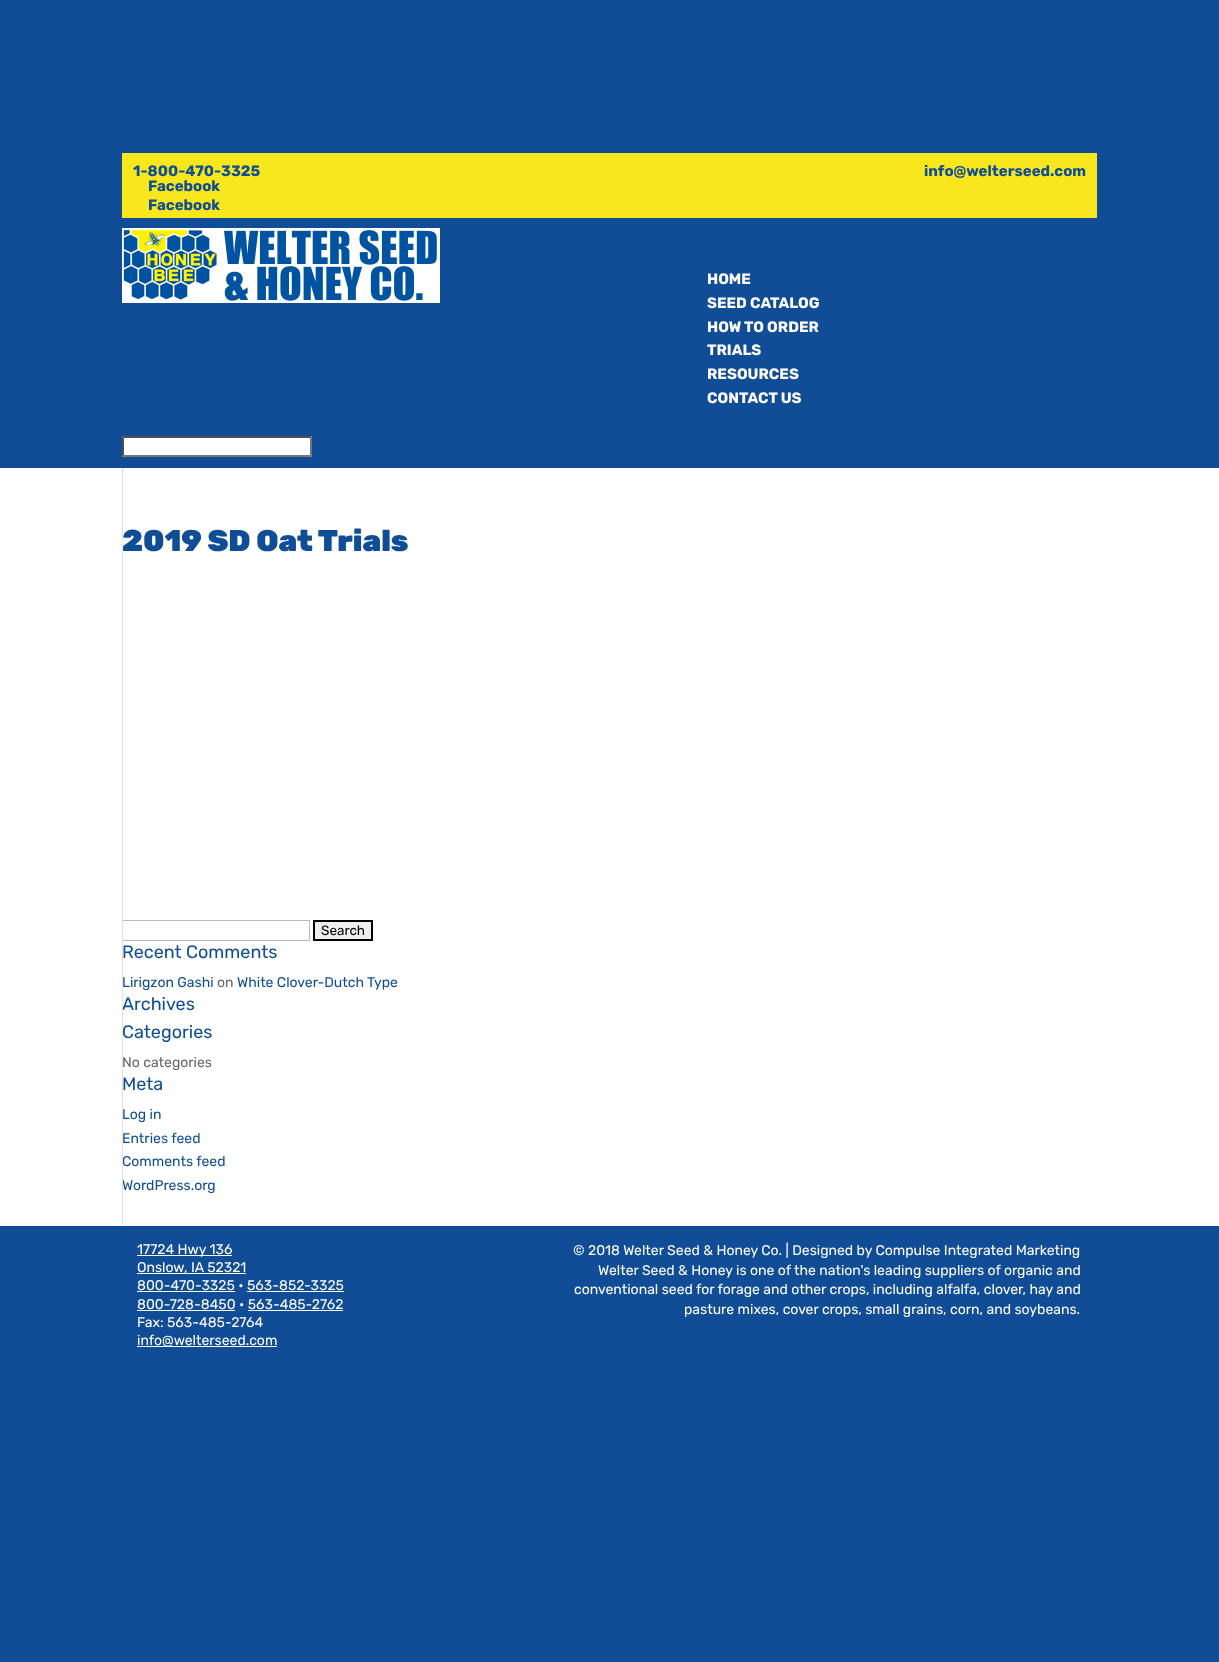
(async () => {
const canvas = document.querySelector("canvas")
canvas.width = 1219
canvas.height = 1662
const c = canvas.getContext("2d")
c.miterLimit = 4
c.fontKerning = "normal"
function T(s,x,y){c.fillText(s,x,y)}
function R(x,y,w,h){c.fillRect(x,y,w,h)}
async function I(src,x,y,w,h){const img=new Image();img.src=src;await img.decode();c.drawImage(img,x,y,w,h)}
let path
c.fillStyle="#104d96"
R(0,0,1219,1662)
c.fillStyle="#f8e71c"
R(122,153,975,65)
c.font="bold 15px Rubik"
c.fillStyle="#0f4e97"
T("1-800-470-3325",133,176)
T("info@welterseed.com",924,176)
T("Facebook",148,191)
T("Facebook",148,210)
await I("1.png",122,228,318,75)
c.fillStyle="#fff"
T("HOME",707,284)
T("SEED CATALOG",707,308)
T("HOW TO ORDER",707,332)
T("TRIALS",707,355)
T("RESOURCES",707,379)
T("CONTACT US",707,403)
R(122,436,190,21)
c.fillStyle="#4f4f4f"
path = new Path2D("M122 436h190l-2 2h-186z")
c.fill(path)
c.fillStyle="#767676"
path = new Path2D("M312 436v21l-2-2v-17z")
c.fill(path)
path = new Path2D("M312 457h-190l2-2h186z")
c.fill(path)
c.fillStyle="#4f4f4f"
path = new Path2D("M122 457v-21l2 2v17z")
c.fill(path)
c.fillStyle="#fff"
R(0,468,1219,758)
c.font="900 30px Rubik"
c.fillStyle="#0f4e97"
T("2019 SD Oat Trials",122,551)
c.strokeStyle="#bbb"
c.strokeRect(122.5,920.5,187,20)
c.font="18px Rubik"
T("Archives",122,1010)
T("Categories",122,1038)
c.font="14px Rubik"
T("Comments feed",122,1166)
T("WordPress.org",122,1190)
c.fillStyle="#e2e2e2"
R(122,468,1,758)
c.fillStyle="#efefef"
c.beginPath()
c.rect(314,921,58,19)
c.fill()
c.strokeStyle="#000"
c.lineWidth=2
c.stroke()
c.font="13.5px Rubik"
c.fillStyle="#000"
T("Search",321,935)
c.font="18px Rubik"
c.fillStyle="#0f4e97"
T("Recent Comments",122,958)
c.font="14px Rubik"
T("Lirigzon Gashi",122,987)
c.fillStyle="#666"
T("on",217,987)
c.fillStyle="#0f4e97"
T("White Clover-Dutch Type",237,987)
c.fillStyle="#666"
T("No categories",122,1067)
c.font="18px Rubik"
c.fillStyle="#0f4e97"
T("Meta",122,1090)
c.font="14px Rubik"
T("Log in",122,1119)
T("Entries feed",122,1143)
c.fillStyle="#fff"
R(137,1255,95,1)
T("17724 Hwy 136",137,1254)
R(137,1273,109,1)
T("Onslow, IA 52321",137,1272)
T("800-470-3325 • 563-852-3325",137,1290)
R(137,1291,98,1)
R(247,1291,97,1)
T("800-728-8450 • 563-485-2762",137,1309)
R(137,1310,98,1)
R(248,1310,95,1)
T("Fax: 563-485-2764",137,1327)
R(137,1346,140,1)
T("info@welterseed.com",137,1345)
T("© 2018 Welter Seed & Honey Co. | Designed by Compulse Integrated Marketing",573,1255)
T("Welter Seed & Honey is one of the nation's leading suppliers of organic and",598,1275)
T("conventional seed for forage and other crops, including alfalfa, clover, hay and",574,1294)
T("pasture mixes, cover crops, small grains, corn, and soybeans.",684,1314)
})()
